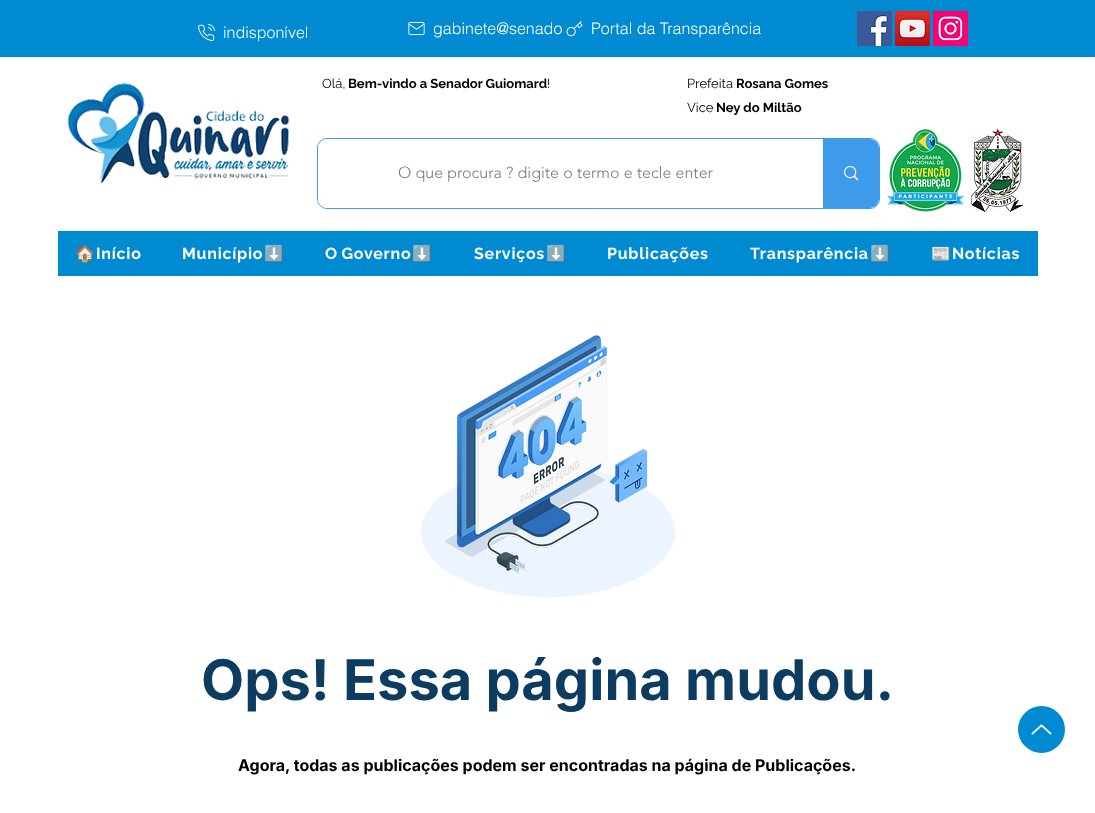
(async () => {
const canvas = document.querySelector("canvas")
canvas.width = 1095
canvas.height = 813
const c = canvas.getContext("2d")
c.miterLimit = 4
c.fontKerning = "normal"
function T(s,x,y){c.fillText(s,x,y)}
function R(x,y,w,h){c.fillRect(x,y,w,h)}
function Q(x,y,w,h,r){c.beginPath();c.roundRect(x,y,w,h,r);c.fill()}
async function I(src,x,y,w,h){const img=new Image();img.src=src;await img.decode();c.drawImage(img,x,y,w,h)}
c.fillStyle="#fff"
R(0,0,1095,813)
c.fillStyle="#008ad1"
R(0,0,657,57)
await I("1.png",198,24,17,17)
c.font="300 16px helvetica"
c.fillStyle="#fff"
T("indisponível",223,38)
c.fillStyle="#008ad1"
Q(405,7,312,42,10)
await I("2.png",408,21,17,15)
c.fillStyle="#fff"
T("gabinete@senado",433,34)
c.fillStyle="#008ad1"
R(657,0,438,57)
await I("3.png",566,20,17,17)
c.fillStyle="#fff"
T("Portal da Transparência",591,34)
await I("4.png",857,11,35,35)
await I("5.png",895,11,35,35)
await I("6.png",933,11,35,35)
await I("7.png",67,81,223,103)
c.font="13px Raleway"
c.fillStyle="#000"
T("Olá,",322,88)
c.font="bold 13px Raleway"
T("Bem-vindo a Senador Guiomard",348,88)
c.font="13px Raleway"
T("!",547,88)
T("Prefeita",687,88)
c.font="bold 13px Raleway"
T("Rosana Gomes",736,88)
c.font="13px Raleway"
T("Vice",687,112)
c.font="bold 13px Raleway"
T("Ney do Miltão",716,112)
c.beginPath()
c.roundRect(317.5,138.5,562,70,9.5)
c.strokeStyle="#3d9be9"
c.stroke()
c.fillStyle="#fff"
Q(318,139,561,69,9)
c.font="300 16px 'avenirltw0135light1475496'"
c.fillStyle="#787878"
T("O que procura ? digite o termo e tecle enter",398,178)
c.fillStyle="#3d9be9"
c.beginPath()
c.roundRect(823,139,56,69,[0,9,9,0])
c.fill()
await I("8.png",844,166,15,15)
await I("9.png",887,129,77,83)
await I("10.png",971,129,52,83)
c.fillStyle="#008ad1"
R(58,231,980,45)
c.letterSpacing="0.75px"
c.font="bold 16px Noto Color Emoji"
c.fillStyle="#fff"
T("🏠",75,259)
c.font="bold 16px Raleway"
T("Início",96,259)
T("Município",182,259)
c.font="bold 16px Noto Color Emoji"
T("⬇️",264,259)
c.wordSpacing="-1px"
c.font="bold 16px Raleway"
T("O Governo",325,259)
c.wordSpacing="0px"
c.font="bold 16px Noto Color Emoji"
T("⬇️",412,259)
c.font="bold 16px Raleway"
T("Serviços",474,259)
c.font="bold 16px Noto Color Emoji"
T("⬇️",546,259)
c.font="bold 16px Raleway"
T("Publicações",607,259)
T("Transparência",750,259)
c.font="bold 16px Noto Color Emoji"
T("⬇️",870,259)
T("📰",931,259)
c.font="bold 16px Raleway"
T("Notícias",952,259)
await I("11.png",421,335,254,263)
c.letterSpacing="0px"
c.font="bold 56px Inter"
c.fillStyle="#0c3c60"
T("Ops! Essa página mudou.",201,700)
c.font="bold 16px Inter"
c.fillStyle="#000"
T("Agora, todas as publicações podem ser encontradas na página de Publicações.",238,771)
c.fillStyle="#008ad1"
c.beginPath()
c.arc(1041.5,729.5,23.5,0,7)
c.fill()
await I("12.png",1031,724,21,11)
})()
